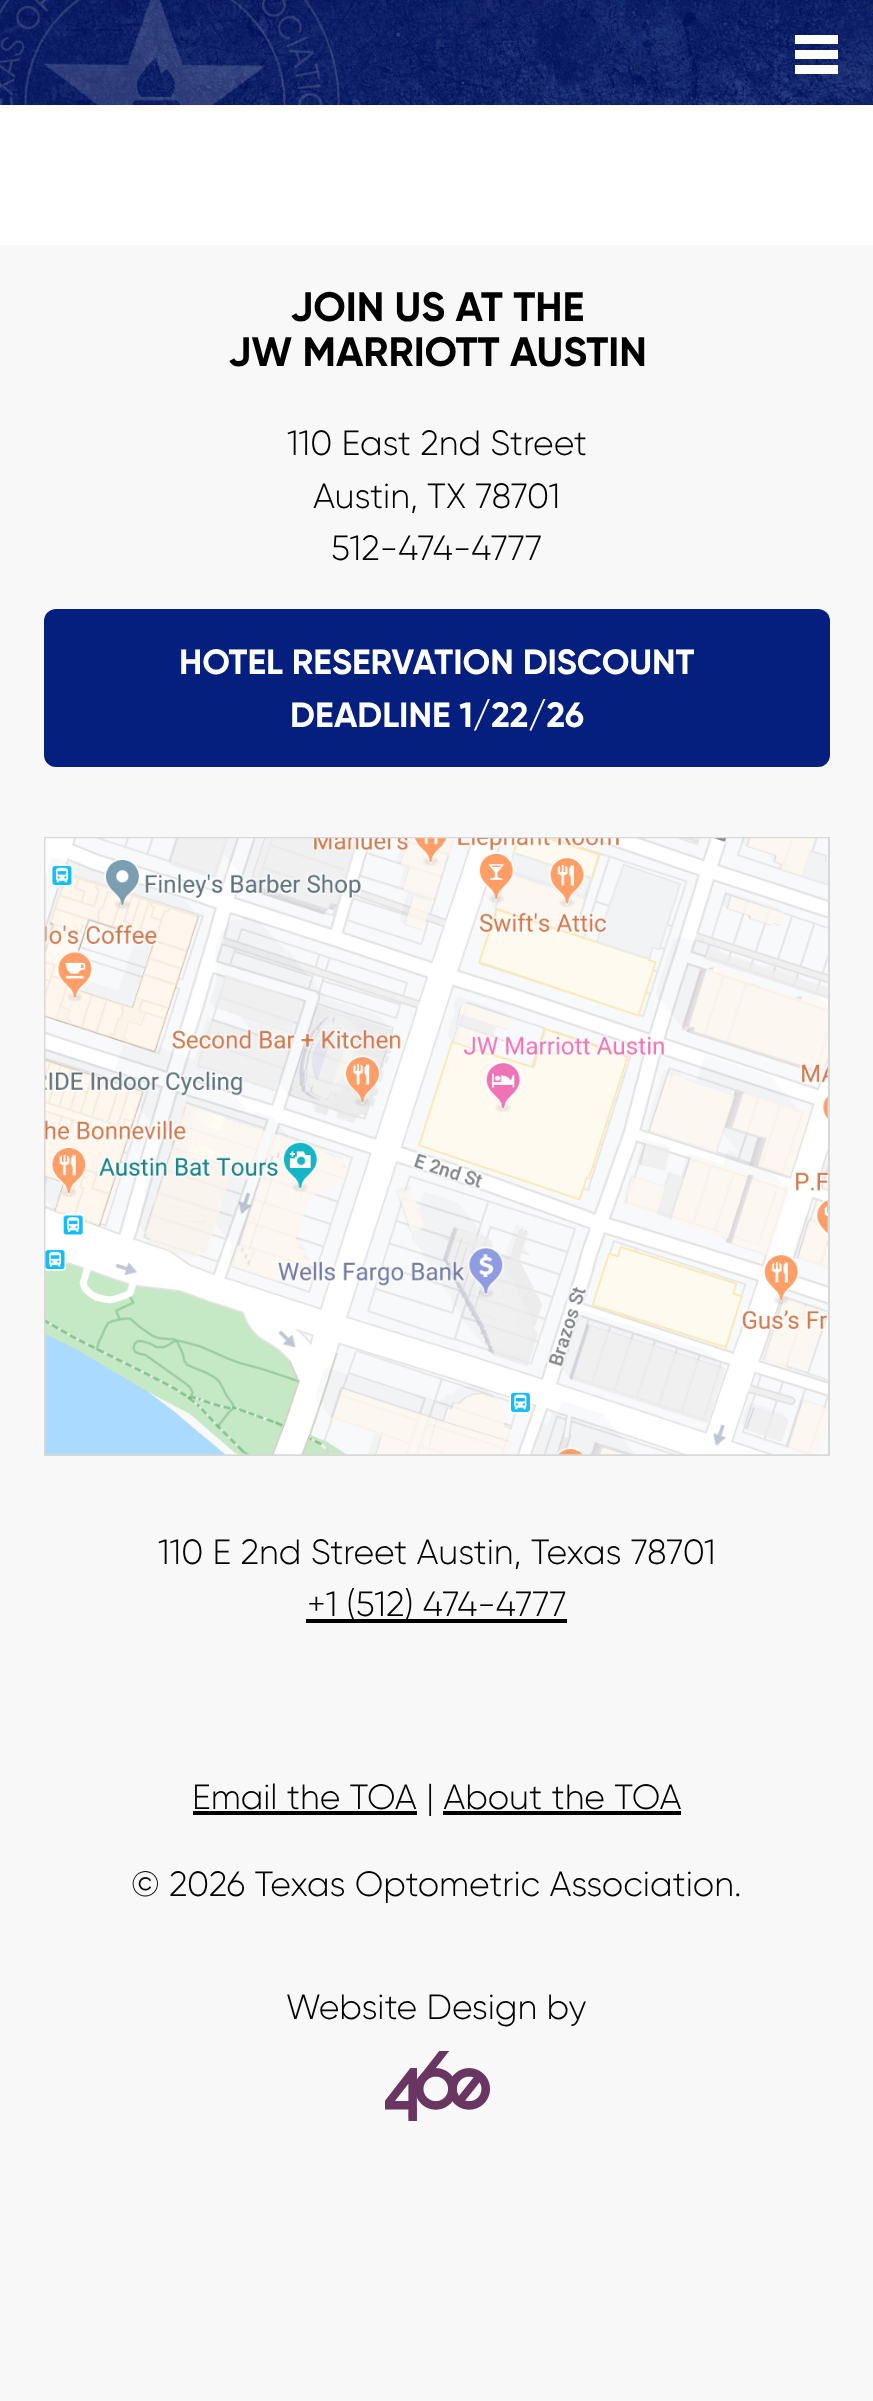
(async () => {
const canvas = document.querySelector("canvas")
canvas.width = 873
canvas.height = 2401
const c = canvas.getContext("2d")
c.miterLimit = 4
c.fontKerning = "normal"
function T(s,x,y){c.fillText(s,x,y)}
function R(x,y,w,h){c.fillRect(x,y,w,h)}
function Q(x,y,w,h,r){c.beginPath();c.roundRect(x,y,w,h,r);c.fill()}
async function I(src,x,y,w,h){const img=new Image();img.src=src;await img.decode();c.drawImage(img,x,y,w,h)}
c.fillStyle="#f8f8f8"
R(0,0,873,2401)
await I("1.png",0,0,873,105)
c.fillStyle="#fff"
R(795,35,43,9)
R(795,50,43,9)
R(795,65,43,9)
R(0,105,873,140)
c.font="bold 41px Gilroy"
c.fillStyle="#000"
T("JOIN US AT THE",290,321)
T("JW MARRIOTT AUSTIN",228,366)
c.font="300 35px Gilroy"
T("110 East 2nd Street",287,455)
T("Austin, TX 78701",313,508)
T("512-474-4777",331,560)
c.fillStyle="#051f7e"
Q(44,609,786,158,12)
c.font="bold 35px Gilroy"
c.fillStyle="#fff"
T("HOTEL RESERVATION DISCOUNT",179,674)
T("DEADLINE 1/22/26",290,727)
c.strokeStyle="#d8d8d8"
c.lineWidth=2
c.strokeRect(45,838,784,617)
await I("2.png",45,838,783,617)
c.font="300 35px Gilroy"
c.fillStyle="#000"
T("110 E 2nd Street Austin, Texas 78701",158,1564)
R(306,1619,261,4)
T("+1 (512) 474-4777",307,1616)
R(193,1811,224,4)
T("Email the TOA | About the TOA",192,1809)
R(443,1811,238,4)
T("© 2026 Texas Optometric Association.",131,1896)
T("Website Design by",286,2019)
await I("3.png",385,2051,105,70)
})()
